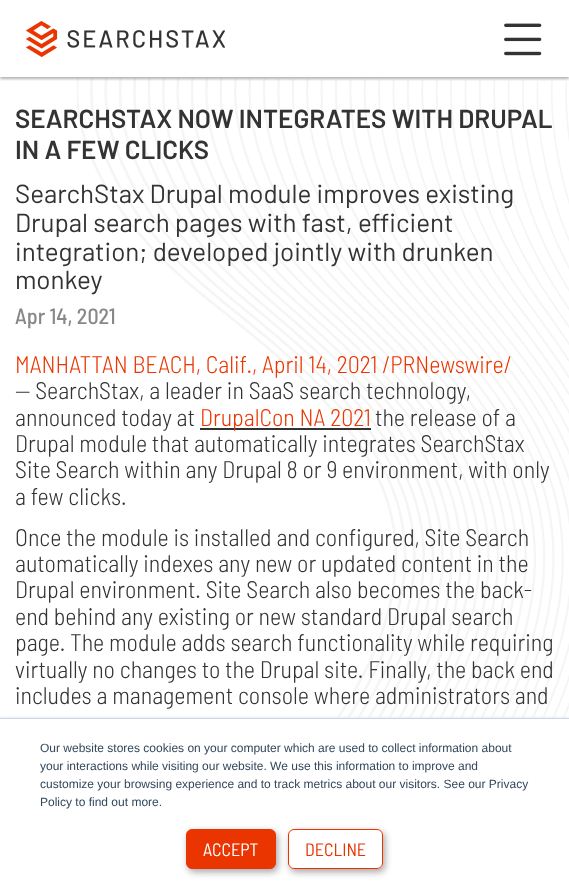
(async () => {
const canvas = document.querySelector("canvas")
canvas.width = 569
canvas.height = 895
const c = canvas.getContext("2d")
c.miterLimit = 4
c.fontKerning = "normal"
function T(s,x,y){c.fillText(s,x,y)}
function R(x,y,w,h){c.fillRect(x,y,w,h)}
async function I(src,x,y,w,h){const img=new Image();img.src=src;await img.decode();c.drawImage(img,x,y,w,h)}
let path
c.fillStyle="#fff"
R(0,0,569,895)
await I("3.png",77,78,492,640)
c.save()
c.beginPath()
c.rect(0,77,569,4)
c.clip()
c.fillStyle="#0000004d"
c.filter="blur(1.5px)"
c.beginPath()
c.rect(0,2,569,77)
c.fill()
c.filter="none"
c.restore()
await I("1.png",26,21,199,36)
await I("2.png",504,23,38,33)
c.font="600 26px Barlow"
c.fillStyle="#333"
T("SEARCHSTAX NOW INTEGRATES WITH DRUPAL",15,128)
T("IN A FEW CLICKS",15,159)
c.font="26px Barlow"
T("SearchStax Drupal module improves existing",15,203)
T("Drupal search pages with fast, efficient",15,232)
T("integration; developed jointly with drunken",15,261)
T("monkey",15,289)
c.font="500 22px Barlow Semi Condensed"
c.fillStyle="#888"
T("Apr 14, 2021",15,324)
c.font="300 24px Barlow Semi Condensed"
c.fillStyle="#eb3500"
T("MANHATTAN BEACH, Calif., April 14, 2021 /PRNewswire/",15,373)
c.fillStyle="#333"
T("— SearchStax, a leader in SaaS search technology,",15,399)
T("announced today at",15,426)
R(200,428,171,2)
c.fillStyle="#eb3500"
T("DrupalCon NA 2021",200,426)
c.fillStyle="#333"
T("the release of a",375,426)
T("Drupal module that automatically integrates SearchStax",15,452)
T("Site Search within any Drupal 8 or 9 environment, with only",15,478)
T("a few clicks.",15,505)
T("Once the module is installed and configured, Site Search",15,546)
T("automatically indexes any new or updated content in the",15,572)
T("Drupal environment. Site Search also becomes the back-",15,598)
T("end behind any existing or new standard Drupal search",15,625)
T("page. The module adds search functionality while requiring",15,651)
T("virtually no changes to the Drupal site. Finally, the back end",15,678)
T("includes a management console where administrators and",15,704)
c.fillStyle="#eaf0f6"
c.filter="blur(1.5px)"
c.beginPath()
c.rect(0,717,569,177)
c.fill()
c.filter="none"
c.fillStyle="#fff"
R(0,719,569,176)
c.fillStyle="#cbd6e2"
R(0,718,569,1)
c.font="12px Liberation Sans"
c.fillStyle="#33475b"
T("Our website stores cookies on your computer which are used to collect information about",40,752)
T("your interactions while visiting our website. We use this information to improve and",40,770)
T("customize your browsing experience and to track metrics about our visitors. See our Privacy",40,788)
T("Policy to find out more.",40,806)
c.fillStyle="#00000059"
c.filter="blur(3.5px)"
c.beginPath()
c.roundRect(188,832,90,40,6)
c.fill()
c.filter="none"
c.fillStyle="#eb3500"
c.beginPath()
c.roundRect(186.5,829.5,89,39,5.5)
c.fill()
c.strokeStyle="#eb3500"
c.stroke()
c.font="18px Barlow Semi Condensed"
c.fillStyle="#fff"
T("ACCEPT",203,856)
c.save()
path = new Path2D("M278 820h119v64h-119zm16 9h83c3.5 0 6 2.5 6 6v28c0 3.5-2.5 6-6 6h-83c-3.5 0-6-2.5-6-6v-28c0-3.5 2.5-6 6-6z")
c.clip(path,"evenodd")
c.fillStyle="#00000059"
c.filter="blur(3.5px)"
c.beginPath()
c.roundRect(290,832,95,40,6)
c.fill()
c.filter="none"
c.restore()
c.beginPath()
c.roundRect(288.5,829.5,94,39,5.5)
c.stroke()
c.fillStyle="#eb3500"
T("DECLINE",305,856)
})()
